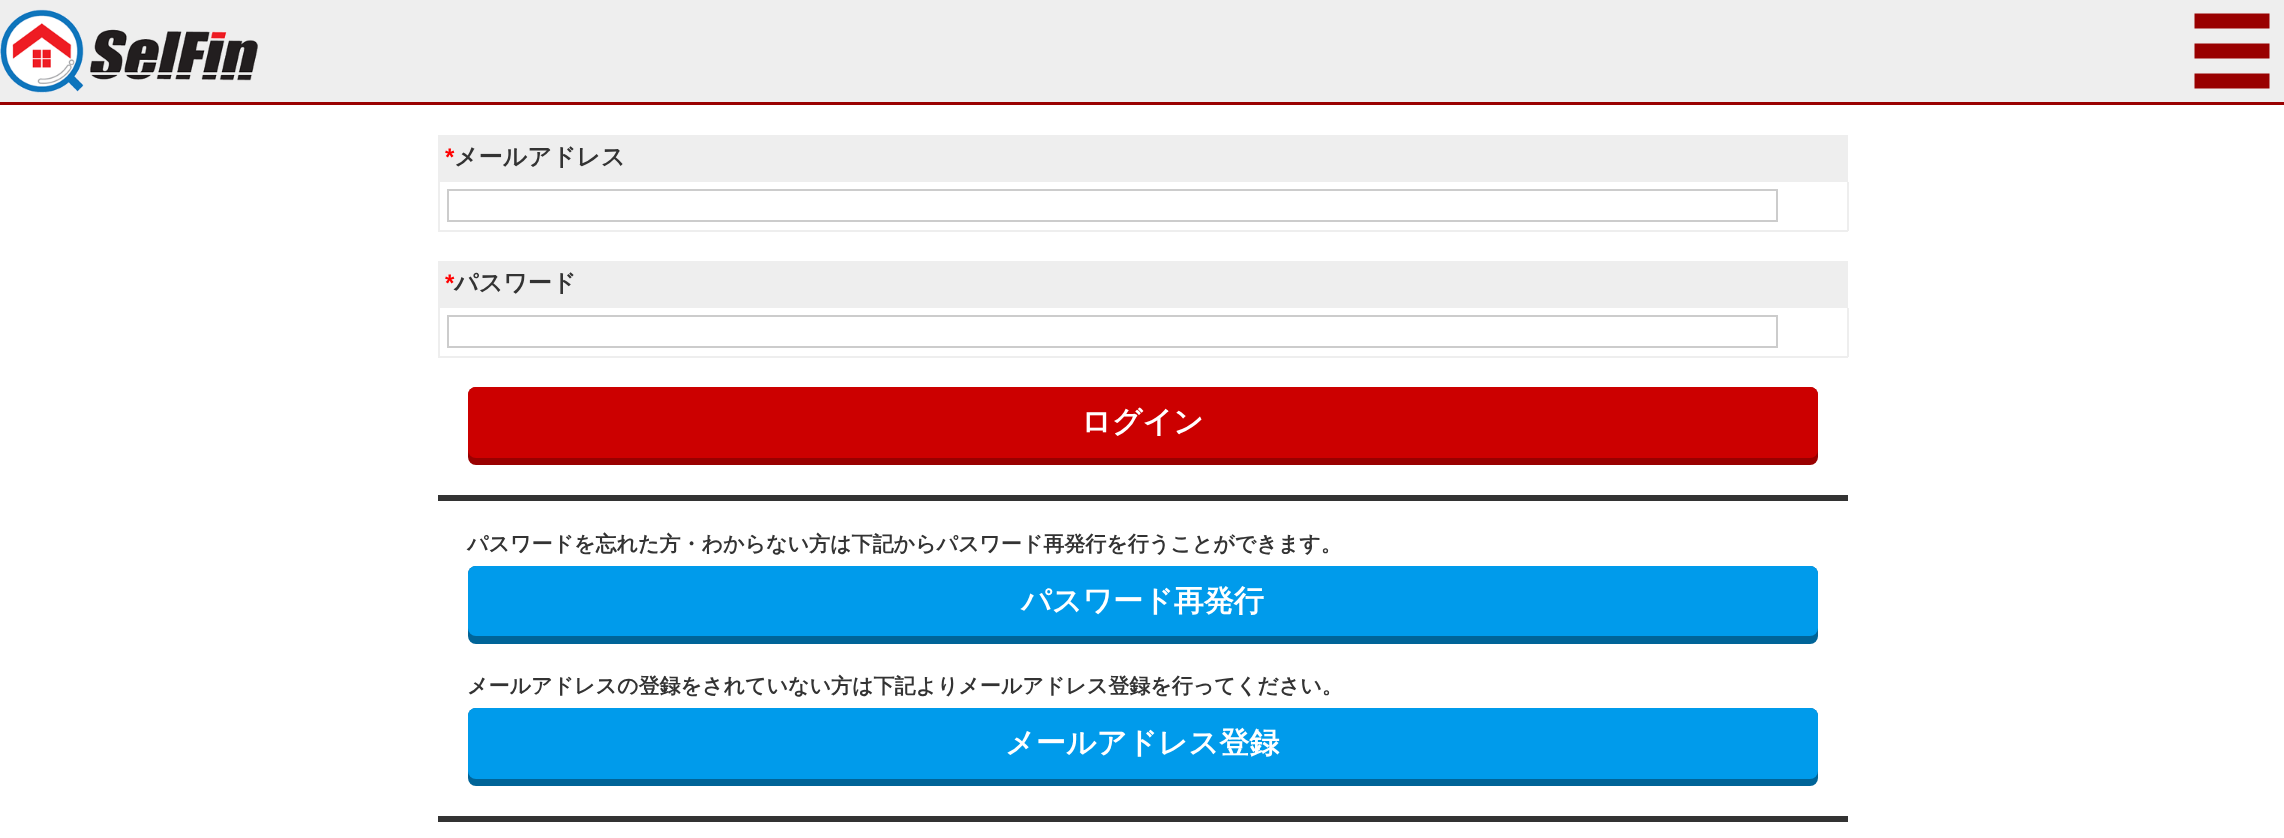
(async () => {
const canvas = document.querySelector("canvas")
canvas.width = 2284
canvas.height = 838
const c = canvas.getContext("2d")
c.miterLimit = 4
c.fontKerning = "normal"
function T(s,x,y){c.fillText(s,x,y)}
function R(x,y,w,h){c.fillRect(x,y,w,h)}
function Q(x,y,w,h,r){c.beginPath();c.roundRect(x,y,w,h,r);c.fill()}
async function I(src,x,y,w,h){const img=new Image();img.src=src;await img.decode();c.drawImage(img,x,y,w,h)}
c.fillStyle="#fff"
R(0,0,2284,838)
c.fillStyle="#eee"
R(0,0,2284,102)
c.fillStyle="#900"
R(0,102,2284,3)
await I("1.png",0,9,258,84)
await I("2.png",2194,13,76,76)
c.fillStyle="#eee"
R(438,135,1410,47)
c.font="bold 24px Liberation Sans"
c.fillStyle="#f00"
T("*",445,165)
c.font="bold 24px WenQuanYi Zen Hei"
c.fillStyle="#333"
T("メールアドレス",454,165)
c.fillStyle="#eee"
R(1847,182,2,49)
R(438,230,1410,2)
R(438,182,2,49)
c.strokeStyle="#ccc"
c.lineWidth=2
c.strokeRect(448,190,1329,31)
R(438,261,1410,47)
c.font="bold 24px Liberation Sans"
c.fillStyle="#f00"
T("*",445,291)
c.font="bold 24px WenQuanYi Zen Hei"
c.fillStyle="#333"
T("パスワード",454,291)
c.fillStyle="#eee"
R(1847,308,2,49)
R(438,356,1410,2)
R(438,308,2,49)
c.strokeRect(448,316,1329,31)
c.fillStyle="#900"
Q(468,387,1350,78,8)
c.fillStyle="#c00"
Q(468,387,1350,71,8)
c.font="bold 30px WenQuanYi Zen Hei"
c.fillStyle="#fff"
T("ログイン",1081,432)
c.fillStyle="#333"
R(438,495,1410,6)
c.font="bold 21px WenQuanYi Zen Hei"
T("パスワードを忘れた方・わからない方は下記からパスワード再発行を行うことができます。",467,551)
c.fillStyle="#006498"
Q(468,566,1350,78,8)
c.fillStyle="#009beb"
Q(468,566,1350,70,8)
c.font="bold 30px WenQuanYi Zen Hei"
c.fillStyle="#fff"
T("パスワード再発行",1021,611)
c.font="bold 21px WenQuanYi Zen Hei"
c.fillStyle="#333"
T("メールアドレスの登録をされていない方は下記よりメールアドレス登録を行ってください。",467,693)
c.fillStyle="#006498"
Q(468,708,1350,78,8)
c.fillStyle="#009beb"
Q(468,708,1350,71,8)
c.font="bold 30px WenQuanYi Zen Hei"
c.fillStyle="#fff"
T("メールアドレス登録",1005,753)
c.fillStyle="#333"
R(438,816,1410,6)
})()
